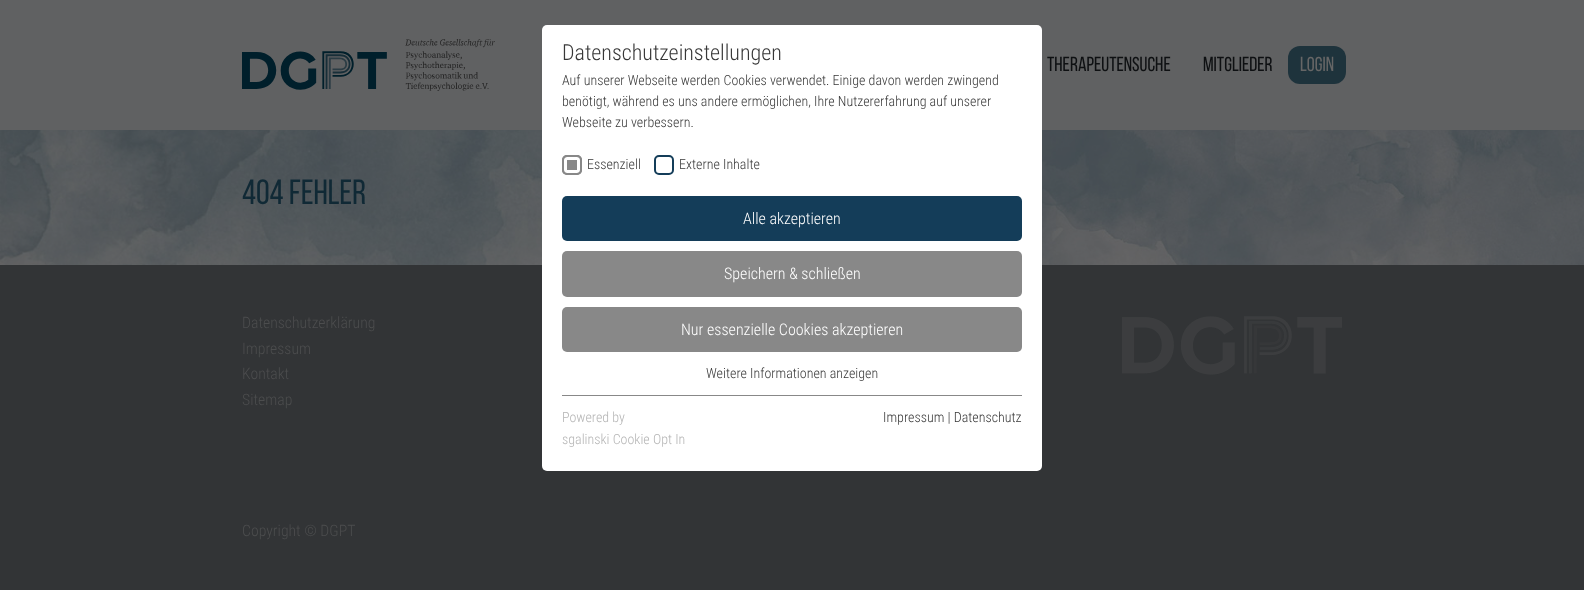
(async () => {
const canvas = document.querySelector("canvas")
canvas.width = 1584
canvas.height = 590
const c = canvas.getContext("2d")
c.miterLimit = 4
c.fontKerning = "normal"
function T(s,x,y){c.fillText(s,x,y)}
function R(x,y,w,h){c.fillRect(x,y,w,h)}
function Q(x,y,w,h,r){c.beginPath();c.roundRect(x,y,w,h,r);c.fill()}
async function I(src,x,y,w,h){const img=new Image();img.src=src;await img.decode();c.drawImage(img,x,y,w,h)}
c.fillStyle="#fff"
R(0,0,1584,590)
c.fillStyle="#606162"
R(0,0,1584,130)
await I("2.png",0,130,1584,135)
c.fillStyle="#323436"
R(0,265,1584,325)
c.fillStyle="#fff"
Q(542,25,500,446,5)
c.font="300 22px Roboto Condensed"
c.fillStyle="#373737"
T("Datenschutzeinstellungen",562,60)
c.font="300 14px Roboto Condensed"
T("Auf unserer Webseite werden Cookies verwendet. Einige davon werden zwingend",562,85)
T("benötigt, während es uns andere ermöglichen, Ihre Nutzererfahrung auf unserer",562,106)
T("Webseite zu verbessern.",562,127)
c.fillStyle="#888"
Q(562,155,20,20,5)
c.beginPath()
c.roundRect(565.5,158.5,13,13,1.5)
c.strokeStyle="#fff"
c.lineWidth=3
c.stroke()
c.beginPath()
c.roundRect(563,156,18,18,4)
c.strokeStyle="#888"
c.lineWidth=2
c.stroke()
c.fillStyle="#373737"
T("Essenziell",587,169)
c.beginPath()
c.roundRect(655,156,18,18,4)
c.strokeStyle="#143d59"
c.stroke()
T("Externe Inhalte",679,169)
c.fillStyle="#143d59"
Q(562,196,460,45,5)
c.font="300 16px Roboto Condensed"
c.fillStyle="#fff"
T("Alle akzeptieren",743,224)
c.fillStyle="#888"
Q(562,251,460,46,5)
c.fillStyle="#fff"
T("Speichern & schließen",724,279)
c.fillStyle="#888"
Q(562,307,460,45,5)
c.fillStyle="#fff"
T("Nur essenzielle Cookies akzeptieren",681,335)
c.font="300 14px Roboto Condensed"
c.fillStyle="#373737"
T("Weitere Informationen anzeigen",706,378)
c.fillStyle="#888"
R(562,395,460,1)
c.fillStyle="#b4b4b4"
T("Powered by",562,422)
T("sgalinski Cookie Opt In",562,444)
c.fillStyle="#373737"
T("Impressum | Datenschutz",883,422)
await I("1.png",242,39,253,52)
c.font="20.25px Bebas Neue"
c.fillStyle="#0e1012"
T("THERAPEUTENSUCHE",1047,71)
T("MITGLIEDER",1203,71)
c.fillStyle="#1e333c"
Q(1288,46,58,38,12)
c.fillStyle="#666"
T("LOGIN",1300,71)
c.font="35px Bebas Neue"
c.fillStyle="#102935"
T("404 Fehler",242,204)
c.font="300 15.75px Roboto Condensed"
c.fillStyle="#4c4d4e"
T("Datenschutzerklärung",242,328)
T("Impressum",242,354)
T("Kontakt",242,379)
T("Sitemap",242,405)
await I("3.png",1122,316,220,59)
T("Copyright © DGPT",242,536)
})()
